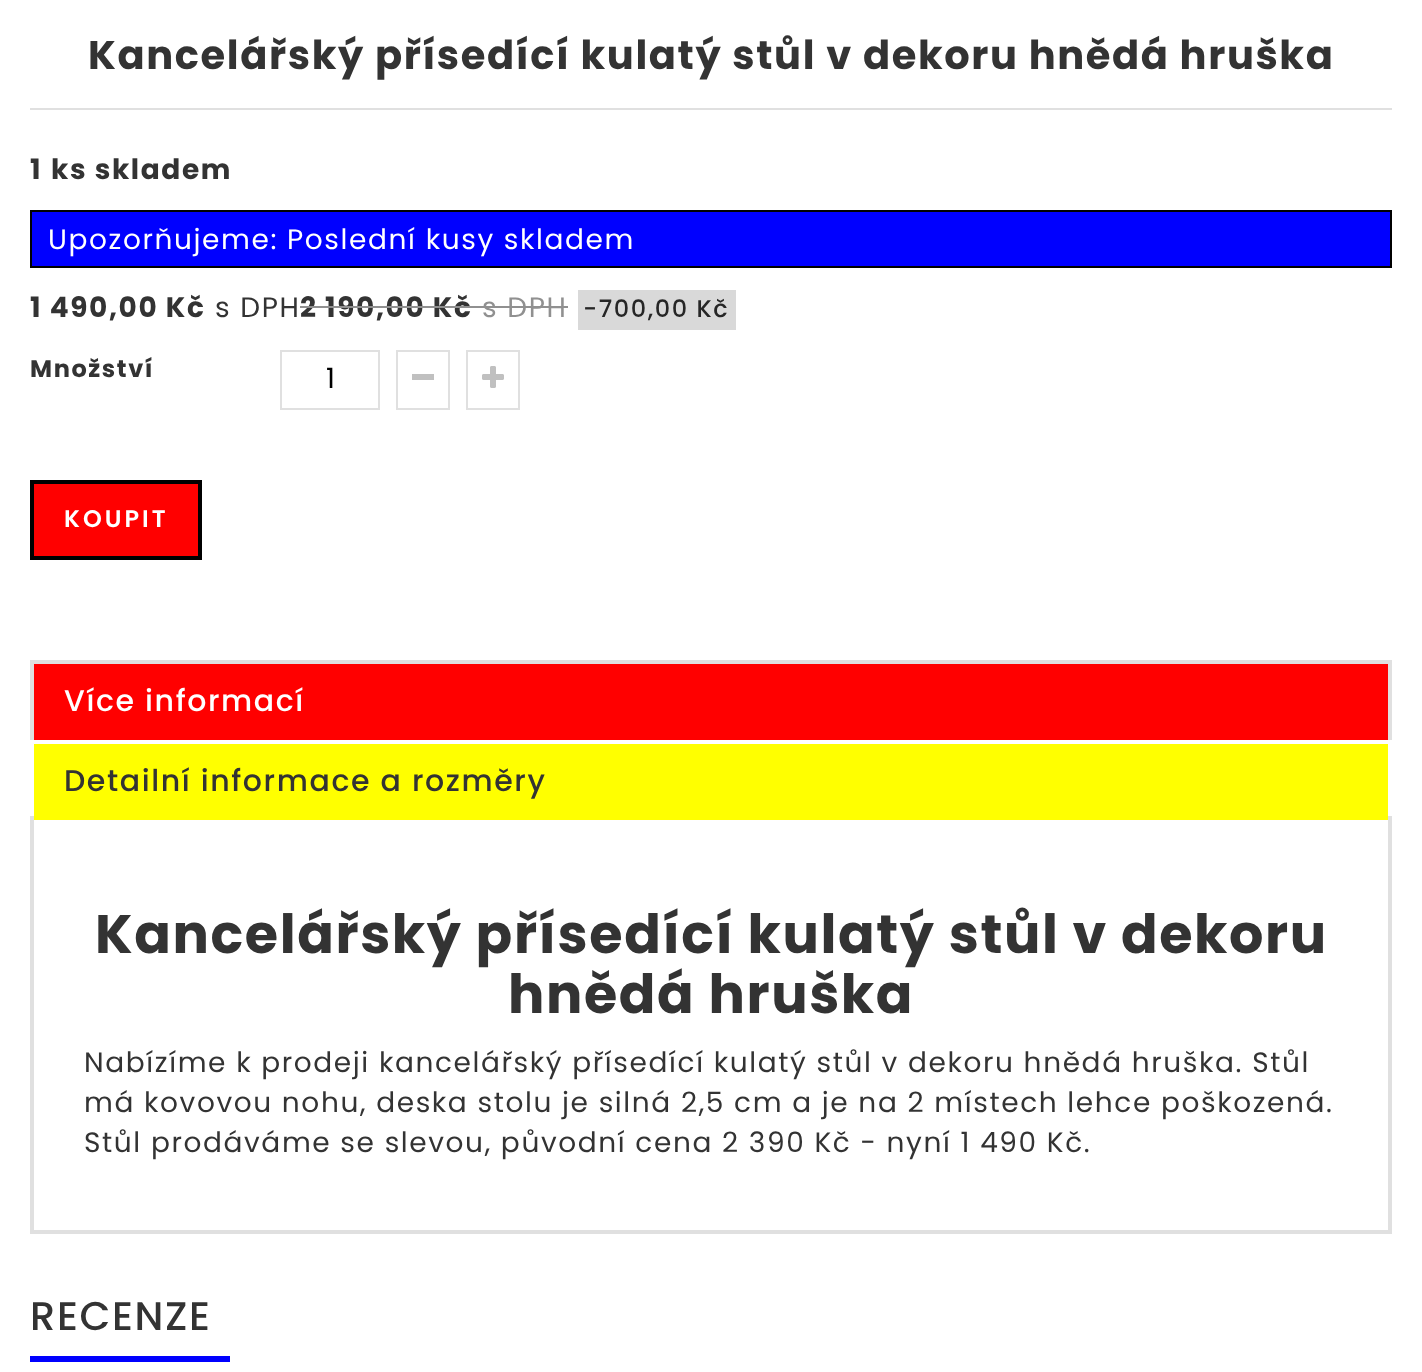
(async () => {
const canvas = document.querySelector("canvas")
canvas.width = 1422
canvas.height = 1372
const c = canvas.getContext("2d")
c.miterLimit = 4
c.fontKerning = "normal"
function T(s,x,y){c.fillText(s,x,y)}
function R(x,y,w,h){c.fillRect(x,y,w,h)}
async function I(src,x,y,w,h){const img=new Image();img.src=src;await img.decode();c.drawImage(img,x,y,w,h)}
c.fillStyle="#fff"
R(0,0,1422,1372)
c.fillStyle="#e0e0e0"
R(30,108,1362,2)
c.letterSpacing="1.6px"
c.font="bold 40px Poppins"
c.fillStyle="#333"
T("Kancelářský přísedící kulatý stůl v dekoru hnědá hruška",88,69)
c.font="bold 28px Poppins"
T("1",30,179)
T("ks skladem",51,179)
c.fillStyle="#00f"
c.beginPath()
c.rect(31,211,1360,56)
c.fill()
c.strokeStyle="#000"
c.lineWidth=2
c.stroke()
c.font="28px Poppins"
c.fillStyle="#fff"
T("Upozorňujeme: Poslední kusy skladem",48,249)
c.font="bold 28px Poppins"
c.fillStyle="#333"
T("1 490,00 Kč",30,317)
c.font="28px Poppins"
T("s DPH",215,317)
c.font="bold 28px Poppins"
T("2 190,00 Kč",300,317)
c.fillStyle="#909090"
R(300,306,172,2)
c.font="28px Poppins"
T("s DPH",482,317)
R(472,306,96,2)
c.fillStyle="#d9d9d9"
R(578,290,158,40)
c.font="500 24px Poppins"
c.fillStyle="#262626"
T("-700,00 Kč",583,317)
c.font="bold 24px Poppins"
c.fillStyle="#333"
T("Množství",30,377)
c.strokeStyle="#e0e0e0"
c.strokeRect(281,351,98,58)
c.letterSpacing="0px"
c.font="28px Poppins"
c.fillStyle="#000"
T("1",326,388)
c.strokeRect(397,351,52,58)
c.fillStyle="#c0c0c0"
R(412,374,22,6)
c.strokeRect(467,351,52,58)
await I("1.png",482,366,22,22)
c.fillStyle="#f00"
c.beginPath()
c.rect(32,482,168,76)
c.fill()
c.strokeStyle="#000"
c.lineWidth=4
c.stroke()
c.letterSpacing="3px"
c.font="600 24px Poppins"
c.fillStyle="#fff"
T("KOUPIT",64,527)
c.fillStyle="#e0e0e0"
R(30,660,1362,4)
R(1388,660,4,80)
R(30,660,4,80)
c.fillStyle="#f00"
R(34,664,1354,76)
c.letterSpacing="1.6px"
c.font="500 30px Poppins"
c.fillStyle="#fff"
T("Více informací",64,711)
c.strokeStyle="#e0e0e0"
c.strokeRect(32,818,1358,414)
c.fillStyle="#ff0"
R(34,744,1354,76)
c.fillStyle="#333"
T("Detailní informace a rozměry",64,791)
c.font="bold 54px Poppins"
T("Kancelářský přísedící kulatý stůl v dekoru",95,953)
T("hnědá hruška",508,1013)
c.font="28px Poppins"
T("Nabízíme k prodeji kancelářský přísedící kulatý stůl v dekoru hnědá hruška. Stůl",84,1072)
T("má kovovou nohu, deska stolu je silná 2,5 cm a je na 2 místech lehce poškozená.",84,1112)
T("Stůl prodáváme se slevou, původní cena 2 390 Kč - nyní 1 490 Kč.",84,1152)
c.font="500 40px Poppins"
T("RECENZE",30,1330)
c.fillStyle="#00f"
R(30,1356,200,6)
})()
